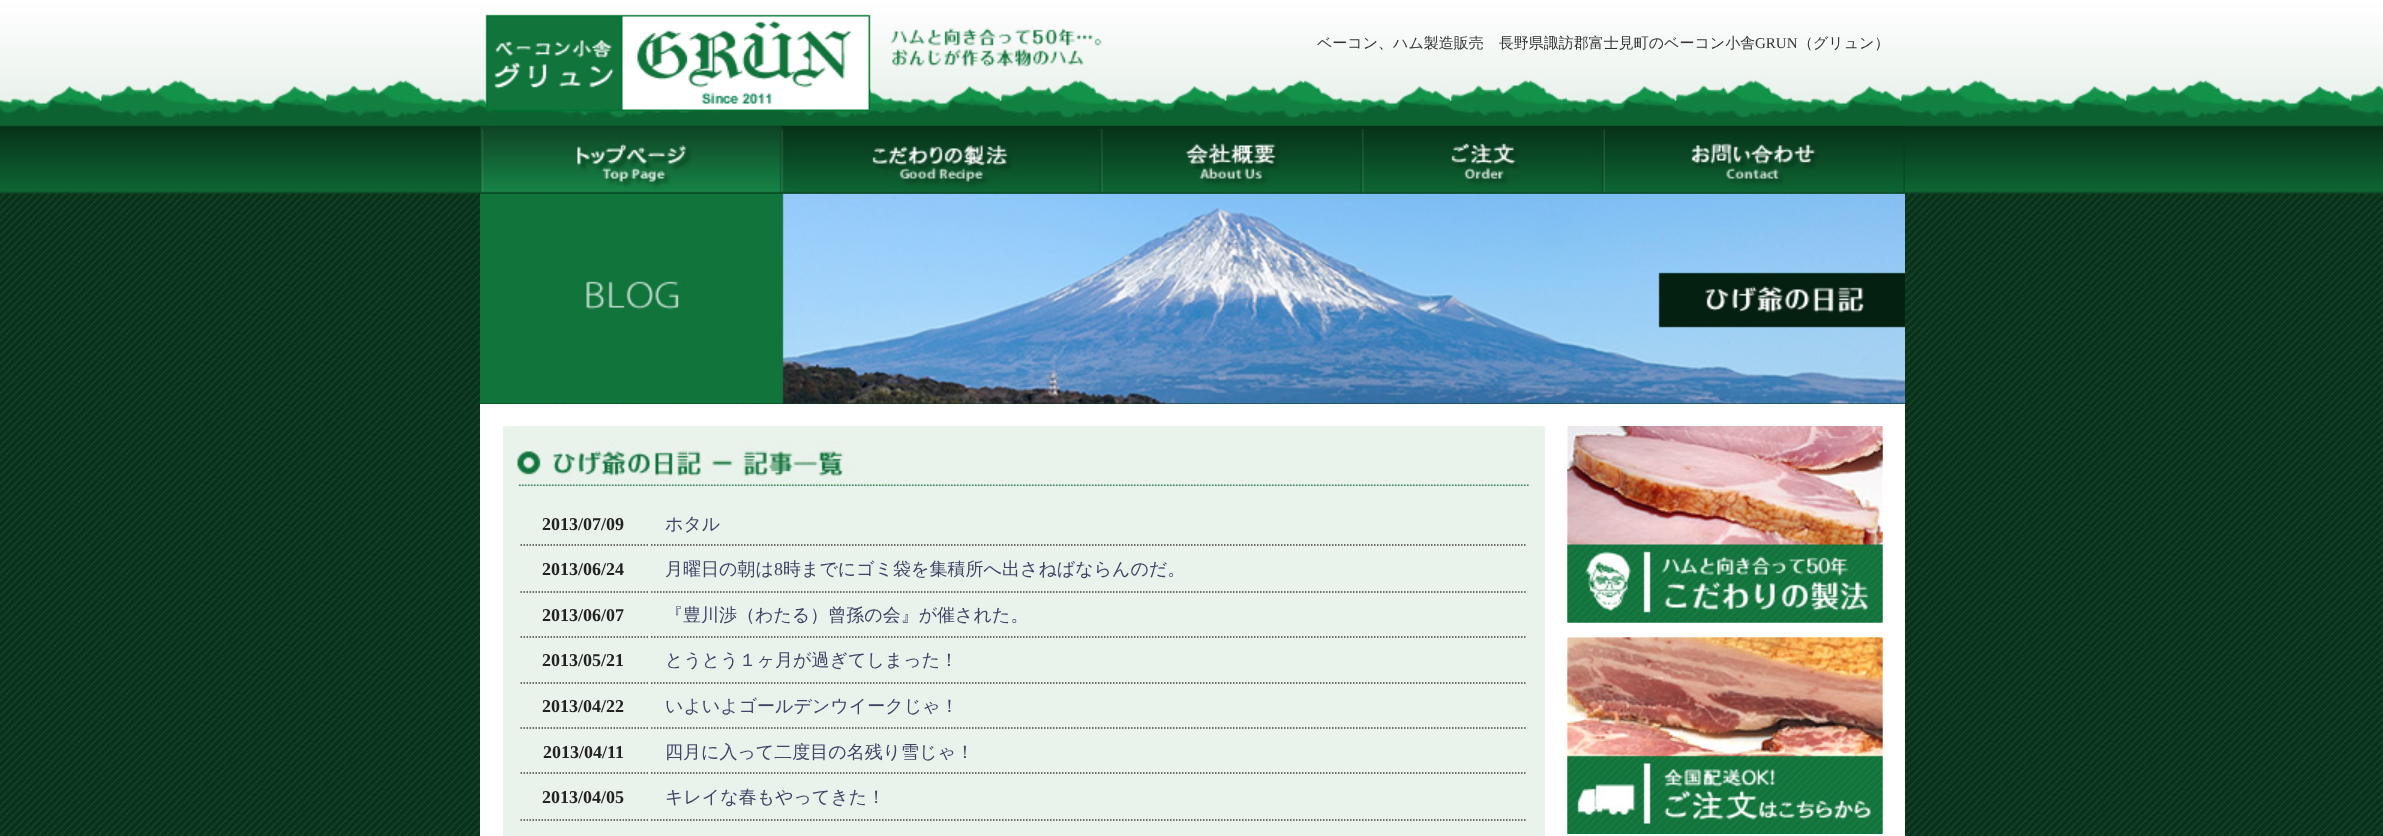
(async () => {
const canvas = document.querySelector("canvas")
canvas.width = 2383
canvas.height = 836
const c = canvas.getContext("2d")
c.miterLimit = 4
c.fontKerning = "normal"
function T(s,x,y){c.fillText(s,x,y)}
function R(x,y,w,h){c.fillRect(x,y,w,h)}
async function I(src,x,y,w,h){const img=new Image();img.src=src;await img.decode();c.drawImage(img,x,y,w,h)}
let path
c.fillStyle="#fff"
R(0,0,2383,836)
await I("1.png",0,0,2383,836)
await I("2.png",485,14,617,98)
c.font="500 15px WenQuanYi Zen Hei"
c.fillStyle="#333"
T("ベーコン、ハム製造販売　長野県諏訪郡富士見町のベーコン小舎",1317,48)
c.font="15px Liberation Serif"
T("GRUN",1755,48)
c.font="500 15px WenQuanYi Zen Hei"
T("（グリュン）",1798,48)
await I("13.png",480,193,1425,211)
await I("3.png",480,126,302,68)
await I("4.png",480,193,298,1)
await I("5.png",781,126,322,68)
await I("6.png",781,126,322,68)
await I("7.png",1102,126,262,68)
await I("8.png",1102,126,262,68)
await I("9.png",1363,126,242,68)
await I("10.png",1363,126,242,68)
await I("11.png",1605,193,300,1)
await I("12.png",1605,126,300,68)
c.fillStyle="#fff"
R(480,404,1425,432)
c.fillStyle="#eaf2ec"
R(503,426,1042,410)
await I("14.png",517,441,1013,45)
path = new Path2D("M520.5 545h127.5")
c.strokeStyle="#444"
c.lineWidth=1.5
c.setLineDash([1.5,1.5])
c.stroke(path)
c.font="bold 18px Liberation Serif"
c.fillStyle="#222"
T("2013/07/09",542,530)
path = new Path2D("M651 545h876")
c.stroke(path)
c.font="500 18px WenQuanYi Zen Hei"
c.fillStyle="#404566"
T("ホタル",665,530)
path = new Path2D("M520.5 592h127.5")
c.stroke(path)
c.font="bold 18px Liberation Serif"
c.fillStyle="#222"
T("2013/06/24",542,575)
path = new Path2D("M651 592h876")
c.stroke(path)
c.font="500 18px WenQuanYi Zen Hei"
c.fillStyle="#404566"
T("月曜日の朝は",665,575)
c.font="18px Liberation Serif"
T("8",774,575)
c.font="500 18px WenQuanYi Zen Hei"
T("時までにゴミ袋を集積所へ出さねばならんのだ。",783,575)
path = new Path2D("M520.5 637h127.5")
c.stroke(path)
c.font="bold 18px Liberation Serif"
c.fillStyle="#222"
T("2013/06/07",542,621)
path = new Path2D("M651 637h876")
c.stroke(path)
c.font="500 18px WenQuanYi Zen Hei"
c.fillStyle="#404566"
T("『豊川渉（わたる）曾孫の会』が催された。",665,621)
path = new Path2D("M520.5 683h127.5")
c.stroke(path)
c.font="bold 18px Liberation Serif"
c.fillStyle="#222"
T("2013/05/21",542,666)
path = new Path2D("M651 683h876")
c.stroke(path)
c.font="500 18px WenQuanYi Zen Hei"
c.fillStyle="#404566"
T("とうとう１ヶ月が過ぎてしまった！",665,666)
path = new Path2D("M520.5 728h127.5")
c.stroke(path)
c.font="bold 18px Liberation Serif"
c.fillStyle="#222"
T("2013/04/22",542,712)
path = new Path2D("M651 728h876")
c.stroke(path)
c.font="500 18px WenQuanYi Zen Hei"
c.fillStyle="#404566"
T("いよいよゴールデンウイークじゃ！",665,712)
path = new Path2D("M520.5 773h127.5")
c.stroke(path)
c.font="bold 18px Liberation Serif"
c.fillStyle="#222"
T("2013/04/11",543,758)
path = new Path2D("M651 773h876")
c.stroke(path)
c.font="500 18px WenQuanYi Zen Hei"
c.fillStyle="#404566"
T("四月に入って二度目の名残り雪じゃ！",665,758)
path = new Path2D("M520.5 820h127.5")
c.stroke(path)
c.font="bold 18px Liberation Serif"
c.fillStyle="#222"
T("2013/04/05",542,803)
path = new Path2D("M651 820h876")
c.stroke(path)
c.font="500 18px WenQuanYi Zen Hei"
c.fillStyle="#404566"
T("キレイな春もやってきた！",665,803)
await I("15.png",1567,426,316,197)
await I("16.png",1567,426,316,197)
await I("17.png",1567,637,316,197)
await I("18.png",1567,637,316,197)
})()
